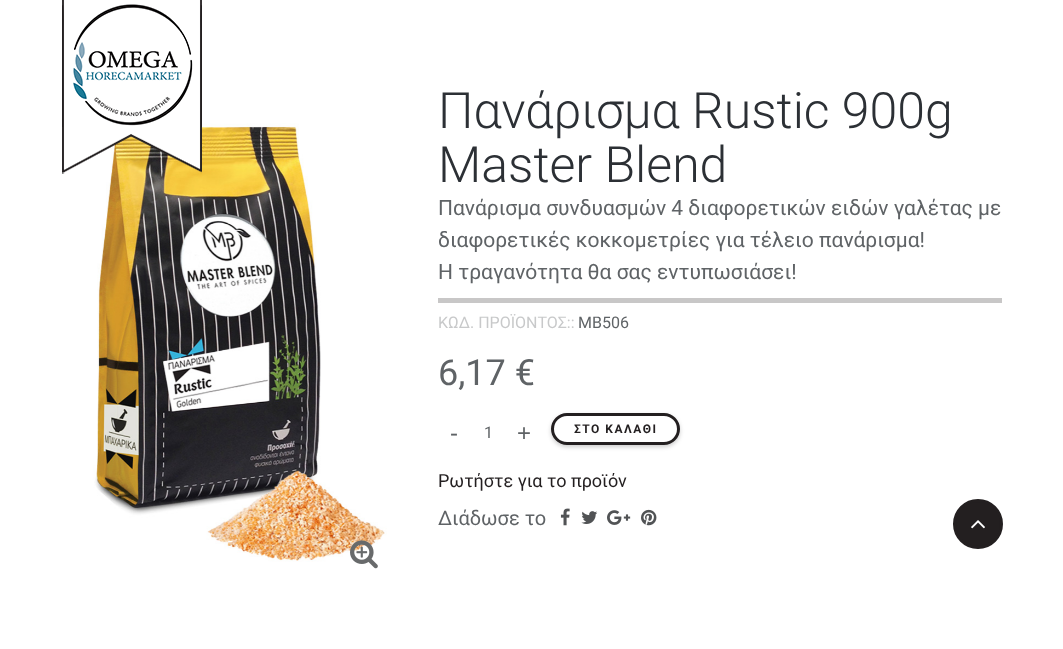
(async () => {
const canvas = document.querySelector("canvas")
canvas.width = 1063
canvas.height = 649
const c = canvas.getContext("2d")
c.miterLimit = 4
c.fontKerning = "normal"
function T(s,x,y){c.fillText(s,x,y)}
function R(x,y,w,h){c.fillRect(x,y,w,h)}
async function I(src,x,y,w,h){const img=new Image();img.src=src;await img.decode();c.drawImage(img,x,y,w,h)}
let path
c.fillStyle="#fff"
R(0,0,1063,649)
await I("2.png",62,84,346,506)
await I("1.png",62,0,140,174)
await I("3.png",350,540,28,29)
c.font="300 50px Roboto"
c.fillStyle="#2c3035"
T("Πανάρισμα Rustic 900g",438,128)
T("Master Blend",438,182)
c.fillStyle="#c8c7c7"
R(438,298,564,5)
c.font="21px Roboto"
c.fillStyle="#5f6366"
T("Πανάρισμα συνδυασμών 4 διαφορετικών ειδών γαλέτας με",438,215)
T("διαφορετικές κοκκομετρίες για τέλειο πανάρισμα!",438,247)
T("Η τραγανότητα θα σας εντυπωσιάσει!",438,279)
c.font="16px Roboto"
c.fillStyle="#c8c9ca"
T("ΚΩΔ. ΠΡΟΪΟΝΤΟΣ::",438,328)
c.fillStyle="#5f6366"
T("MB506",578,328)
c.font="36px Roboto"
T("6,17 €",438,385)
c.font="24px Liberation Sans"
T("-",450,441)
c.font="16px Roboto"
T("1",484,438)
c.font="24px Liberation Sans"
T("+",517,441)
c.save()
path = new Path2D("M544 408h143v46h-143zm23 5h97c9 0 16 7 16 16c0 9-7 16-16 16h-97c-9 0-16-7-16-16c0-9 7-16 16-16z")
c.clip(path,"evenodd")
c.fillStyle="#00000033"
c.filter="blur(2px)"
c.beginPath()
c.roundRect(551,415,129,32,16)
c.fill()
c.filter="none"
c.restore()
c.beginPath()
c.roundRect(552.5,414.5,126,29,14.5)
c.strokeStyle="#231f20"
c.lineWidth=3
c.stroke()
c.letterSpacing="1.5px"
c.font="bold 12px Roboto"
c.fillStyle="#231f20"
T("ΣΤΟ ΚΑΛΑΘΙ",574,433)
c.letterSpacing="0px"
c.font="18px Roboto"
T("Ρωτήστε για το προϊόν",438,487)
c.font="20px Roboto"
c.fillStyle="#5f6366"
T("Διάδωσε το",438,525)
await I("4.png",560,508,10,18)
await I("5.png",581,511,17,13)
await I("6.png",607,510,24,15)
await I("7.png",641,509,16,17)
c.fillStyle="#231f20"
c.beginPath()
c.arc(978,524,23.5,0,7)
c.fill()
c.stroke()
await I("8.png",971,520,14,9)
})()
